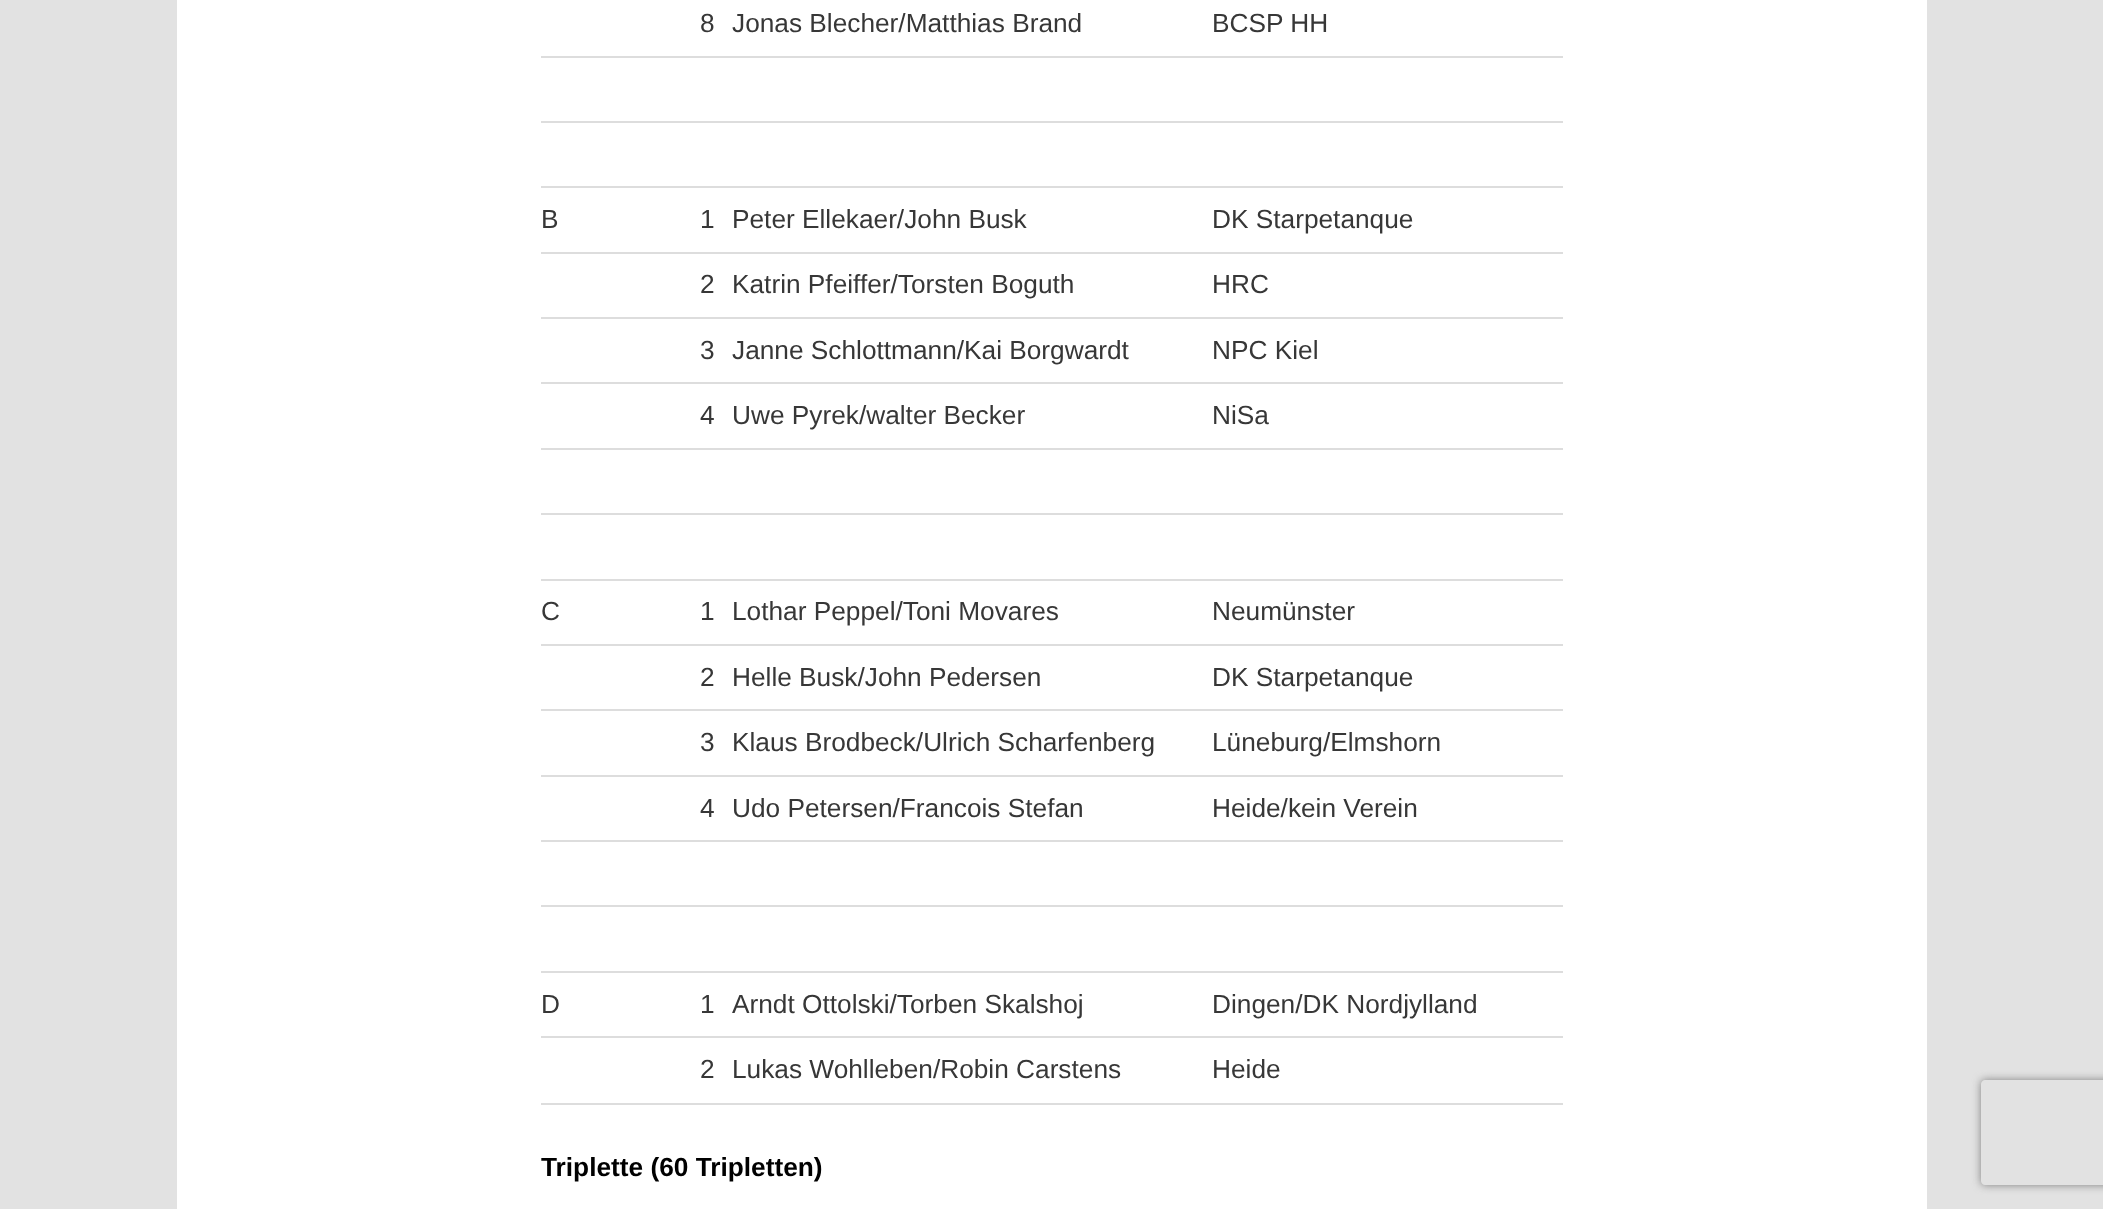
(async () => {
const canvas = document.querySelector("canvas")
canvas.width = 2103
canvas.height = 1209
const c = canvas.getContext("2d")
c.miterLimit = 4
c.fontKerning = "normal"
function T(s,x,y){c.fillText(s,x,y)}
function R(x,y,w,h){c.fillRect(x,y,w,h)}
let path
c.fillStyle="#e2e2e2"
R(0,0,2103,1209)
c.fillStyle="#fff"
R(177,0,1750,1209)
c.fillStyle="#ddd"
R(541,1103,1022,2)
c.font="26.25px Liberation Sans"
c.fillStyle="#373737"
T("8",700,32)
T("Jonas Blecher/Matthias Brand",732,32)
T("BCSP HH",1212,32)
c.fillStyle="#ddd"
R(541,56,1022,2)
R(541,121,1022,2)
R(541,186,1022,2)
c.fillStyle="#373737"
T("B",541,228)
T("1",700,228)
T("Peter Ellekaer/John Busk",732,228)
T("DK Starpetanque",1212,228)
c.fillStyle="#ddd"
R(541,252,1022,2)
c.fillStyle="#373737"
T("2",700,293)
T("Katrin Pfeiffer/Torsten Boguth",732,293)
T("HRC",1212,293)
c.fillStyle="#ddd"
R(541,317,1022,2)
c.fillStyle="#373737"
T("3",700,359)
T("Janne Schlottmann/Kai Borgwardt",732,359)
T("NPC Kiel",1212,359)
c.fillStyle="#ddd"
R(541,382,1022,2)
c.fillStyle="#373737"
T("4",700,424)
T("Uwe Pyrek/walter Becker",732,424)
T("NiSa",1212,424)
c.fillStyle="#ddd"
R(541,448,1022,2)
R(541,513,1022,2)
R(541,579,1022,2)
c.fillStyle="#373737"
T("C",541,620)
T("1",700,620)
T("Lothar Peppel/Toni Movares",732,620)
T("Neumünster",1212,620)
c.fillStyle="#ddd"
R(541,644,1022,2)
c.fillStyle="#373737"
T("2",700,686)
T("Helle Busk/John Pedersen",732,686)
T("DK Starpetanque",1212,686)
c.fillStyle="#ddd"
R(541,709,1022,2)
c.fillStyle="#373737"
T("3",700,751)
T("Klaus Brodbeck/Ulrich Scharfenberg",732,751)
T("Lüneburg/Elmshorn",1212,751)
c.fillStyle="#ddd"
R(541,775,1022,2)
c.fillStyle="#373737"
T("4",700,817)
T("Udo Petersen/Francois Stefan",732,817)
T("Heide/kein Verein",1212,817)
c.fillStyle="#ddd"
R(541,840,1022,2)
R(541,905,1022,2)
R(541,971,1022,2)
c.fillStyle="#373737"
T("D",541,1013)
T("1",700,1013)
T("Arndt Ottolski/Torben Skalshoj",732,1013)
T("Dingen/DK Nordjylland",1212,1013)
c.fillStyle="#ddd"
R(541,1036,1022,2)
c.fillStyle="#373737"
T("2",700,1078)
T("Lukas Wohlleben/Robin Carstens",732,1078)
T("Heide",1212,1078)
c.font="bold 26.25px Liberation Sans"
c.fillStyle="#000"
T("Triplette (60 Tripletten)",541,1176)
c.save()
path = new Path2D("M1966 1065h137v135h-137zm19 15h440c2 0 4 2 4 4v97c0 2-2 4-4 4h-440c-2 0-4-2-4-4v-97c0-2 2-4 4-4z")
c.clip(path,"evenodd")
c.fillStyle="#808080"
c.filter="blur(4.5px)"
c.beginPath()
c.roundRect(1981,1080,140,105,4)
c.fill()
c.filter="none"
c.restore()
})()
